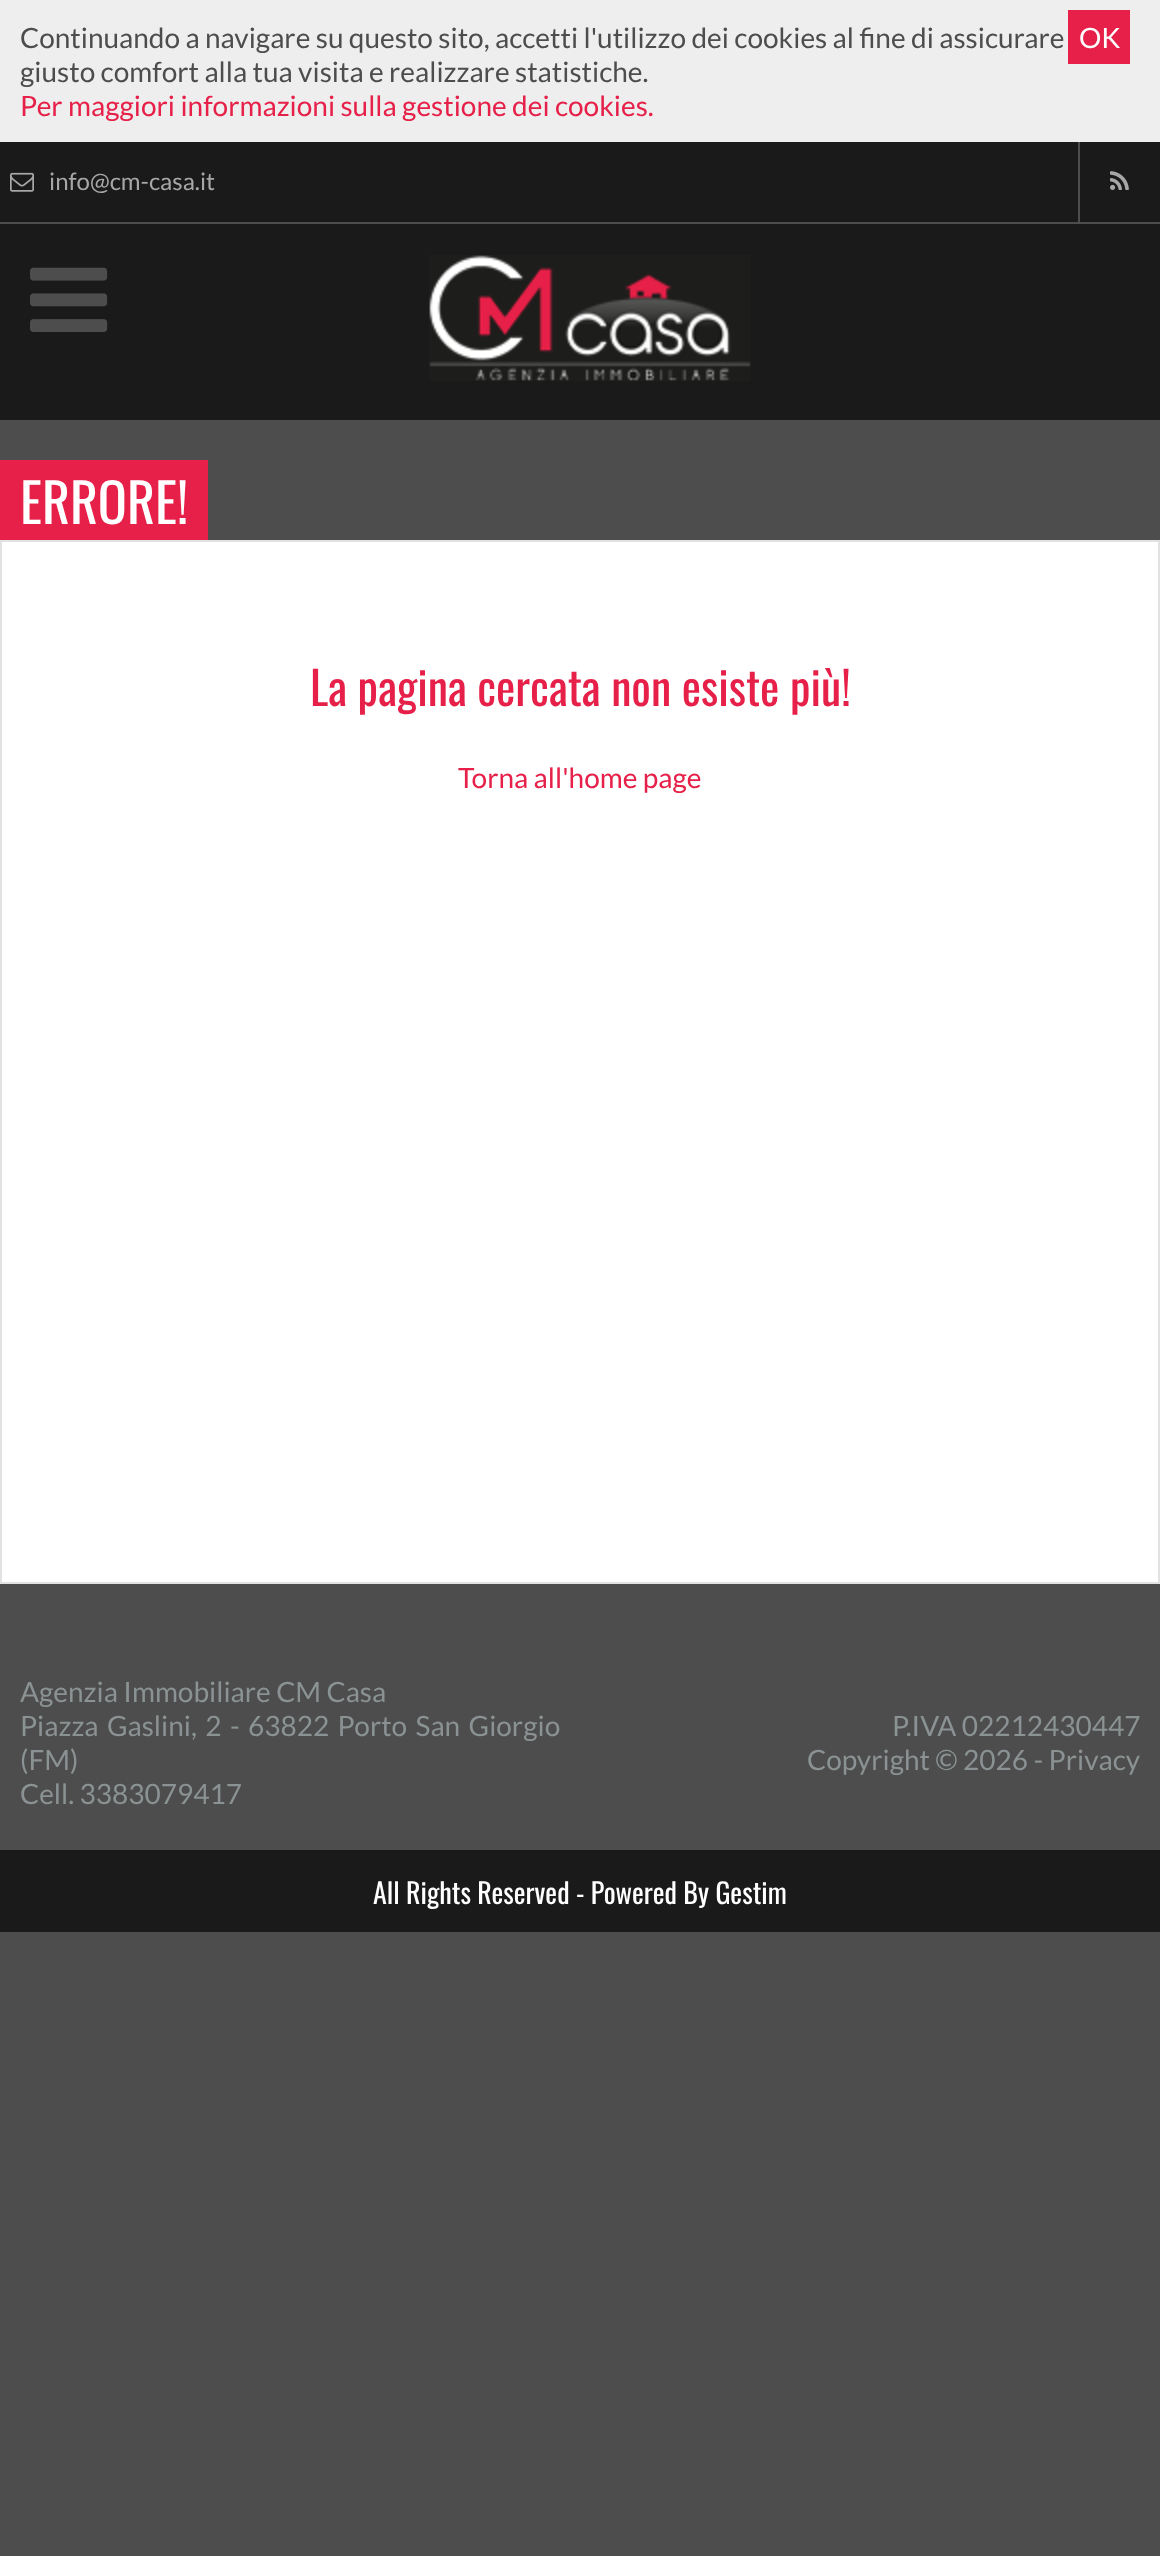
(async () => {
const canvas = document.querySelector("canvas")
canvas.width = 1160
canvas.height = 2556
const c = canvas.getContext("2d")
c.miterLimit = 4
c.fontKerning = "normal"
function T(s,x,y){c.fillText(s,x,y)}
function R(x,y,w,h){c.fillRect(x,y,w,h)}
async function I(src,x,y,w,h){const img=new Image();img.src=src;await img.decode();c.drawImage(img,x,y,w,h)}
c.fillStyle="#4d4d4d"
R(0,0,1160,2556)
c.fillStyle="#1a1a1a"
R(0,142,1160,278)
c.fillStyle="#eee"
R(0,0,1160,142)
c.font="28px Lato"
c.fillStyle="#4d4d4d"
T("Continuando a navigare su questo sito, accetti l'utilizzo dei cookies al fine di assicurare",20,48)
c.fillStyle="#e62048"
R(1068,10,62,54)
c.fillStyle="#fff"
T("OK",1079,48)
c.fillStyle="#4d4d4d"
T("giusto comfort alla tua visita e realizzare statistiche.",20,82)
c.fillStyle="#e62048"
T("Per maggiori informazioni sulla gestione dei cookies.",20,116)
await I("1.png",10,172,24,20)
c.font="24px Lato"
c.fillStyle="#a7a7a7"
T("info@cm-casa.it",49,190)
c.fillStyle="#4d4d4d"
R(1078,142,2,80)
await I("2.png",1110,171,19,19)
R(0,222,1160,2)
await I("3.png",30,267,78,65)
await I("4.png",429,255,322,126)
c.fillStyle="#e62048"
R(0,460,208,80)
c.font="54px Oswald"
c.fillStyle="#fff"
T("ERRORE!",20,524)
c.beginPath()
c.rect(1,541,1158,1042)
c.fill()
c.strokeStyle="#e2e2e2"
c.lineWidth=2
c.stroke()
c.font="46px Oswald"
c.fillStyle="#e62048"
T("La pagina cercata non esiste più!",310,706)
c.font="28px Lato"
T("Torna all'home page",458,788)
c.fillStyle="#8b9293"
T("Agenzia Immobiliare CM Casa",20,1702)
c.wordSpacing="3px"
T("Piazza Gaslini, 2 - 63822 Porto San Giorgio",20,1736)
c.wordSpacing="0px"
T("(FM)",20,1770)
T("Cell. 3383079417",20,1804)
T("P.IVA 02212430447",892,1736)
T("Copyright © 2026 - Privacy",807,1770)
c.fillStyle="#1a1a1a"
R(0,1850,1160,82)
c.font="28px Oswald"
c.fillStyle="#fff"
T("All Rights Reserved - Powered By Gestim",373,1904)
})()
